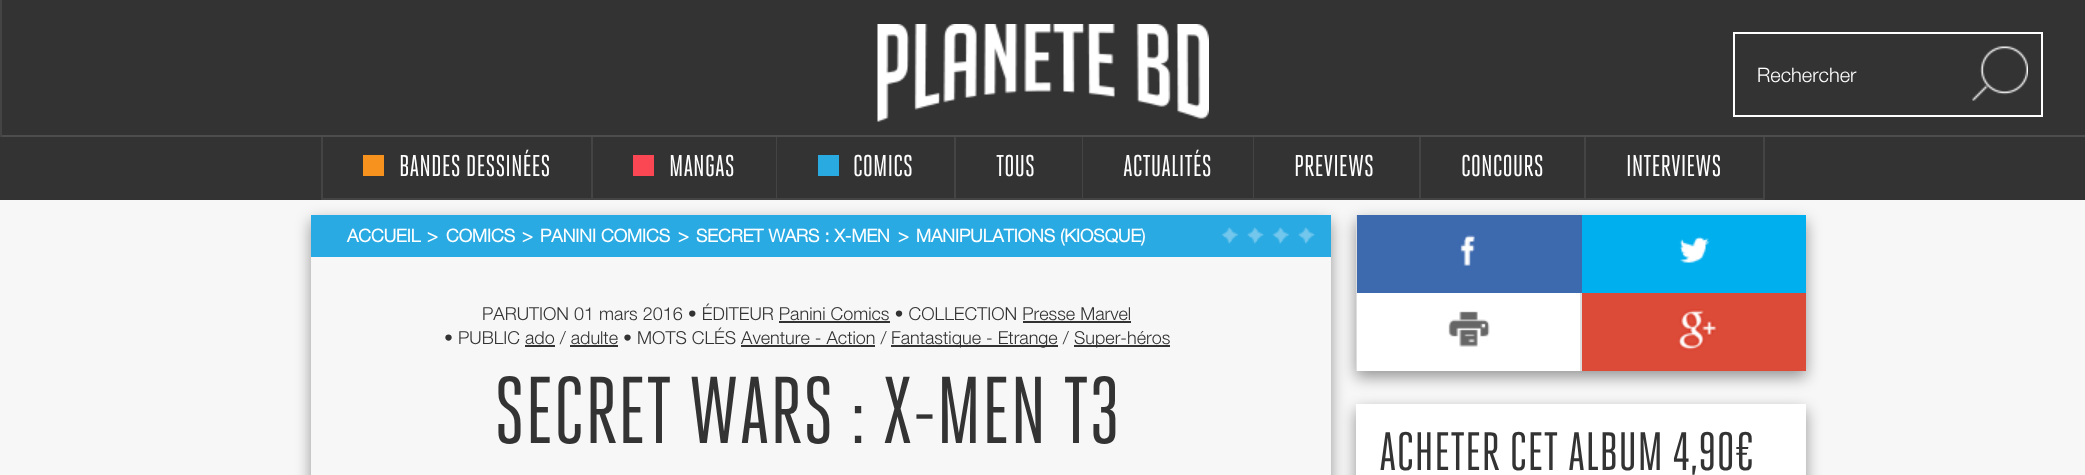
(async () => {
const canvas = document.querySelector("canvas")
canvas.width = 2085
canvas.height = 475
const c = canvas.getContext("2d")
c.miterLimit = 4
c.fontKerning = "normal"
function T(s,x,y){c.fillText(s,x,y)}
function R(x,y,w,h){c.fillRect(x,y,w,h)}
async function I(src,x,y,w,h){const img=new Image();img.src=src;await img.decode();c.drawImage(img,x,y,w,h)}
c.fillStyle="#f7f7f7"
R(0,0,2085,475)
c.fillStyle="#333"
R(2,0,2083,135)
c.fillStyle="#444"
R(0,0,2,137)
c.fillStyle="#4d4d4d"
R(2,135,2083,2)
await I("1.png",877,24,332,98)
c.strokeStyle="#fff"
c.lineWidth=2
c.strokeRect(1734,33,308,83)
c.font="300 20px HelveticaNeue"
c.fillStyle="#fff"
T("Rechercher",1757,82)
await I("2.png",1972,46,56,55)
c.fillStyle="#333"
R(0,137,2085,63)
c.fillStyle="#00000066"
c.filter="blur(7.5px)"
c.beginPath()
c.rect(311,221,1020,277)
c.fill()
c.filter="none"
c.fillStyle="#444"
R(321,137,2,63)
R(591,137,2,63)
R(323,198,270,2)
c.fillStyle="#f7921e"
R(363,155,21,21)
c.font="30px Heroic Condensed"
c.fillStyle="#fff"
T("BANDES DESSINÉES",399,176)
c.fillStyle="#444"
R(776,137,1,63)
R(593,198,184,2)
c.fillStyle="#fb4654"
R(633,155,21,21)
c.fillStyle="#fff"
T("MANGAS",669,176)
c.fillStyle="#444"
R(954,137,2,63)
R(777,198,179,2)
c.fillStyle="#29abe1"
R(818,155,21,21)
c.fillStyle="#fff"
T("COMICS",853,176)
c.fillStyle="#444"
R(1082,137,1,63)
R(956,198,127,2)
c.fillStyle="#fff"
T("TOUS",996,176)
c.fillStyle="#444"
R(1253,137,1,63)
R(1083,198,171,2)
c.fillStyle="#fff"
T("ACTUALITÉS",1123,176)
c.fillStyle="#00000066"
c.filter="blur(7.5px)"
c.beginPath()
c.rect(1356,221,450,156)
c.fill()
c.filter="none"
c.fillStyle="#444"
R(1419,137,2,63)
R(1254,198,167,2)
c.fillStyle="#fff"
T("PREVIEWS",1294,176)
c.fillStyle="#444"
R(1584,137,2,63)
R(1421,198,165,2)
c.fillStyle="#fff"
T("CONCOURS",1461,176)
c.fillStyle="#444"
R(1763,137,2,63)
R(1586,198,178,2)
c.fillStyle="#fff"
T("INTERVIEWS",1626,176)
c.fillStyle="#f7f7f7"
R(311,257,1020,218)
c.fillStyle="#29aae3"
R(311,215,1020,42)
c.font="bold 18px HelveticaNeue"
c.fillStyle="#fff"
T("ACCUEIL",347,242)
T(">",427,242)
T("COMICS",446,242)
T(">",522,242)
T("PANINI COMICS",540,242)
T(">",678,242)
T("SECRET WARS : X-MEN",696,242)
T(">",898,242)
T("MANIPULATIONS (KIOSQUE)",916,242)
await I("3.png",1221,227,17,17)
await I("4.png",1247,227,17,17)
await I("5.png",1272,227,17,17)
await I("6.png",1298,227,17,17)
c.font="300 18px HelveticaNeue"
c.fillStyle="#333"
T("PARUTION 01 mars 2016 • ÉDITEUR Panini Comics • COLLECTION Presse Marvel",482,320)
R(779,321,111,2)
R(1023,321,108,2)
T("• PUBLIC ado / adulte • MOTS CLÉS Aventure - Action /",444,344)
R(891,345,167,2)
T("Fantastique - Etrange /",891,344)
R(1074,345,96,2)
T("Super-héros",1074,344)
R(525,345,30,2)
R(570,345,48,2)
R(741,345,134,2)
c.font="94.5px Heroic Condensed"
T("SECRET WARS : X-MEN T3",494,443)
c.fillStyle="#fff"
R(1357,293,223,78)
c.fillStyle="#3d6aae"
R(1357,215,225,78)
c.fillStyle="#dedede"
R(1356,215,1,156)
await I("7.png",1460,235,15,31)
c.fillStyle="#00afee"
R(1582,215,224,78)
await I("8.png",1679,236,31,27)
await I("9.png",1448,311,42,36)
c.fillStyle="#dc4a38"
R(1582,293,224,78)
c.fillStyle="#dedede"
R(1580,293,2,78)
await I("10.png",1678,309,40,42)
c.fillStyle="#00000066"
c.filter="blur(7.5px)"
c.beginPath()
c.rect(1356,410,450,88)
c.fill()
c.filter="none"
c.fillStyle="#fff"
R(1356,404,450,71)
c.font="54px Heroic Condensed"
c.fillStyle="#333"
T("ACHETER CET ALBUM 4,90€",1379,470)
})()
